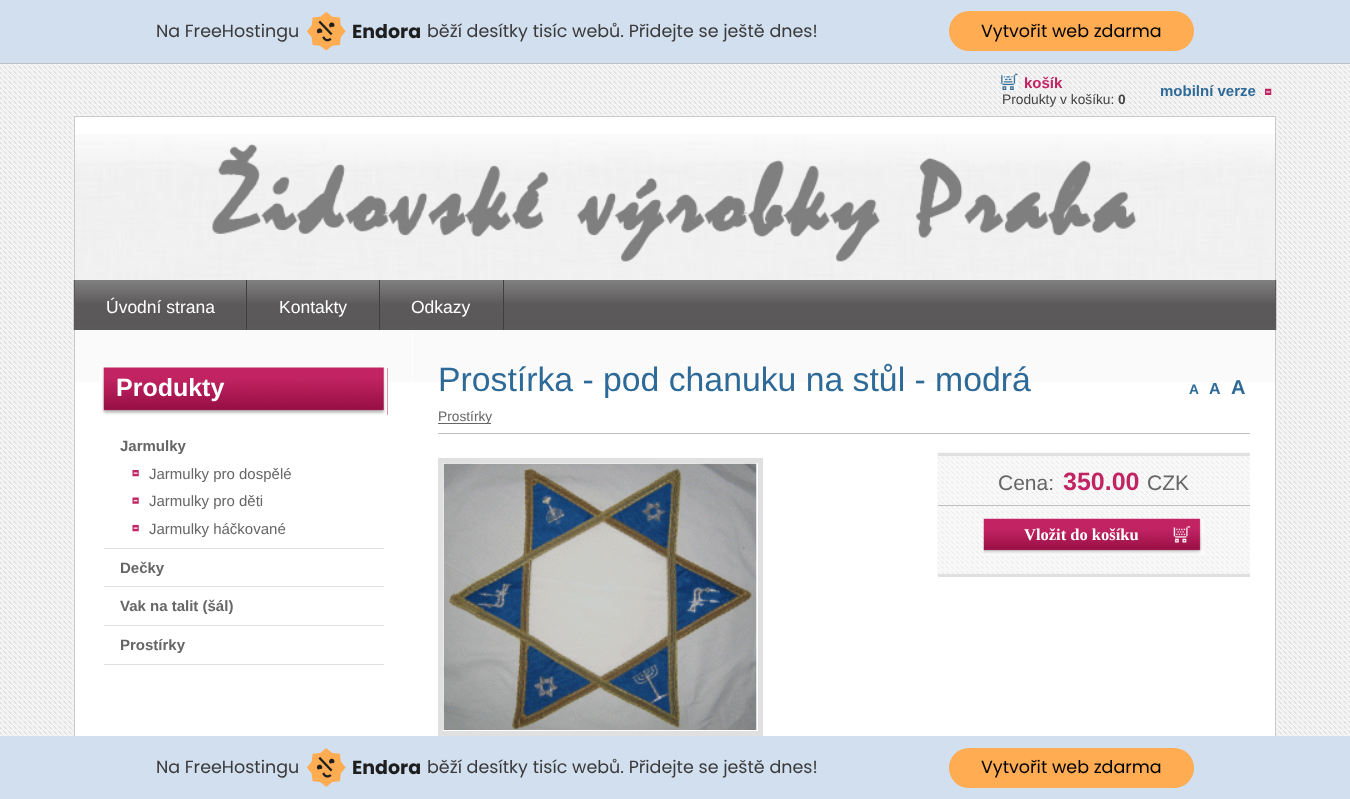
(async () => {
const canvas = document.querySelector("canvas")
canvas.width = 1350
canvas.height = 799
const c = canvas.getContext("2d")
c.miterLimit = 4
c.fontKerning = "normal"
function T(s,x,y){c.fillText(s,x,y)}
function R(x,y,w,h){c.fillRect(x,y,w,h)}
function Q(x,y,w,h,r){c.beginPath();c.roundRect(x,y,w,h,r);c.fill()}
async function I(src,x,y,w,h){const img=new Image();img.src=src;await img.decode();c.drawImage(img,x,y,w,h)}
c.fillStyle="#fff"
R(0,0,1350,799)
await I("1.png",0,64,1350,672)
c.fillStyle="#d2dfef"
R(0,0,1350,63)
c.fillStyle="#bebfc4"
R(0,63,1350,1)
c.font="17.5px Poppins"
c.fillStyle="#3a3a3a"
T("Na FreeHostingu",156,37)
await I("2.png",306,11,40,40)
c.font="bold 19px Poppins"
c.fillStyle="#1e1e1e"
T("Endora",352,38)
c.font="17.5px Poppins"
c.fillStyle="#3a3a3a"
T("běží desítky tisíc webů. Přidejte se ještě dnes!",427,37)
c.fillStyle="#ffac52"
Q(949,11,245,40,20)
c.fillStyle="#000"
T("Vytvořit web zdarma",981,37)
await I("3.png",1001,73,17,17)
c.font="bold 15px Liberation Sans"
c.fillStyle="#c22463"
T("košík",1024,88)
c.font="13.75px Liberation Sans"
c.fillStyle="#444"
T("Produkty v košíku:",1002,104)
c.font="bold 13.75px Liberation Sans"
T("0",1118,104)
c.font="bold 15px Liberation Sans"
c.fillStyle="#2e6a97"
T("mobilní verze",1160,96)
await I("4.png",1265,88,7,7)
c.fillStyle="#fff"
R(75,117,1200,17)
await I("5.png",75,134,1200,146)
c.fillStyle="#c9c9c9"
R(74,116,1202,1)
R(1275,116,1,164)
R(74,116,1,164)
await I("6.png",73,280,1204,50)
c.fillStyle="#5b5958"
R(1275,280,1,24)
R(74,280,1,24)
c.fillStyle="#403f3f"
R(246,280,1,50)
c.font="17.5px Liberation Sans"
c.fillStyle="#fff"
T("Úvodní strana",106,313)
c.fillStyle="#403f3f"
R(379,280,1,50)
c.fillStyle="#fff"
T("Kontakty",279,313)
c.fillStyle="#403f3f"
R(503,280,1,50)
c.fillStyle="#fff"
T("Odkazy",411,313)
R(75,330,1200,406)
c.fillStyle="#c9c9c9"
R(1275,330,1,406)
R(74,330,1,406)
c.fillStyle="#fafafa"
R(75,330,337,52)
c.fillStyle="#c22463"
R(387,368,1,47)
await I("7.png",100,367,288,48)
c.font="bold 25px Liberation Sans"
c.fillStyle="#fff"
T("Produkty",116,396)
c.fillStyle="#e0e0e0"
R(104,548,280,1)
c.font="bold 15px Liberation Sans"
c.fillStyle="#666"
T("Jarmulky",120,451)
await I("8.png",132,470,7,7)
c.font="15px Liberation Sans"
T("Jarmulky pro dospělé",149,479)
await I("9.png",132,497,7,7)
T("Jarmulky pro děti",149,506)
await I("8.png",132,525,7,7)
T("Jarmulky háčkované",149,534)
c.fillStyle="#e0e0e0"
R(104,586,280,1)
c.font="bold 15px Liberation Sans"
c.fillStyle="#666"
T("Dečky",120,573)
c.fillStyle="#e0e0e0"
R(104,625,280,1)
c.fillStyle="#666"
T("Vak na talit (šál)",120,611)
c.fillStyle="#e0e0e0"
R(104,664,280,1)
c.fillStyle="#666"
T("Prostírky",120,650)
c.fillStyle="#fafafa"
R(413,330,862,52)
c.font="33.75px Liberation Sans"
c.fillStyle="#2e6a97"
T("Prostírka - pod chanuku na stůl - modrá",438,391)
c.font="bold 13.75px Liberation Sans"
T("A",1189,394)
c.font="bold 16px Liberation Sans"
T("A",1209,394)
c.font="bold 20px Liberation Sans"
T("A",1231,394)
c.fillStyle="#bebebe"
R(438,433,812,1)
c.fillStyle="#666"
R(438,423,53,1)
c.font="13.75px Liberation Sans"
T("Prostírky",438,421)
c.strokeStyle="#e0e0e0"
c.lineWidth=5
c.strokeRect(440.5,460.5,320,273)
await I("10.png",443,463,314,267)
await I("11.png",937,452,313,125)
c.fillStyle="#e0e0e0"
R(938,453,312,3)
R(938,574,312,3)
c.fillStyle="#bebebe"
R(938,505,312,1)
c.font="21px Liberation Sans"
c.fillStyle="#666"
T("Cena:",998,490)
c.font="bold 25px Liberation Sans"
c.fillStyle="#c22463"
T("350.00",1063,490)
c.font="21px Liberation Sans"
c.fillStyle="#666"
T("CZK",1147,490)
await I("12.png",983,518,221,37)
c.font="bold 16.5px Liberation Serif"
c.fillStyle="#fff"
T("Vložit do košíku",1024,540)
c.fillStyle="#d2dfef"
R(0,736,1350,63)
c.font="17.5px Poppins"
c.fillStyle="#3a3a3a"
T("Na FreeHostingu",156,773)
await I("13.png",306,748,40,39)
c.font="bold 19px Poppins"
c.fillStyle="#1e1e1e"
T("Endora",352,774)
c.font="17.5px Poppins"
c.fillStyle="#3a3a3a"
T("běží desítky tisíc webů. Přidejte se ještě dnes!",427,773)
c.fillStyle="#ffac52"
Q(949,748,245,40,20)
c.fillStyle="#000"
T("Vytvořit web zdarma",981,773)
})()
